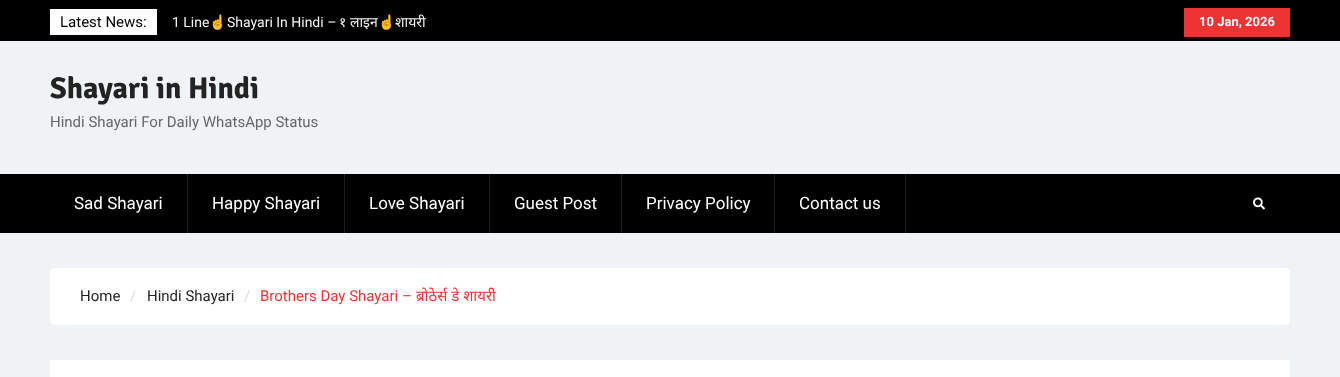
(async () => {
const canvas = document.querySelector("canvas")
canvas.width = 1340
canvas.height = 377
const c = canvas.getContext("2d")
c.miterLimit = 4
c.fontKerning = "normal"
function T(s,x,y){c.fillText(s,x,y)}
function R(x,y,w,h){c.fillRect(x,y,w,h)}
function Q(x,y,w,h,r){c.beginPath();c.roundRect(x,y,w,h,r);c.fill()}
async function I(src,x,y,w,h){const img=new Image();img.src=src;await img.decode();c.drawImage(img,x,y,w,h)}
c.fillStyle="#f0f3f5"
R(0,0,1340,377)
c.fillStyle="#000"
R(0,0,1340,41)
c.fillStyle="#fff"
R(50,9,107,26)
c.font="15px Roboto"
c.fillStyle="#000"
T("Latest News:",60,27)
c.font="14px Roboto"
c.fillStyle="#f5f5f5"
T("1 Line",172,27)
c.font="14px Noto Color Emoji"
T("☝️",209,27)
c.font="14px Roboto"
T("Shayari In Hindi –",227,27)
c.font="14px Noto Sans"
T("१ लाइन",339,27)
c.font="14px Noto Color Emoji"
T("☝️",378,27)
c.font="14px Noto Sans"
T("शायरी",395,27)
c.fillStyle="#e33"
R(1184,8,106,29)
c.font="bold 13px Roboto"
c.fillStyle="#fff"
T("10 Jan, 2026",1199,26)
c.font="bold 30px Signika"
c.fillStyle="#232323"
T("Shayari in Hindi",50,98)
c.font="15px Roboto"
c.fillStyle="#666"
T("Hindi Shayari For Daily WhatsApp Status",50,127)
c.fillStyle="#000"
R(0,174,1340,59)
c.fillStyle="#1c1c1c"
R(187,174,1,59)
c.font="17px Roboto"
c.fillStyle="#fff"
T("Sad Shayari",74,209)
c.fillStyle="#1c1c1c"
R(344,174,1,59)
c.fillStyle="#fff"
T("Happy Shayari",212,209)
c.fillStyle="#1c1c1c"
R(489,174,1,59)
c.fillStyle="#fff"
T("Love Shayari",369,209)
c.fillStyle="#1c1c1c"
R(621,174,1,59)
c.fillStyle="#fff"
T("Guest Post",514,209)
c.fillStyle="#1c1c1c"
R(774,174,1,59)
c.fillStyle="#fff"
T("Privacy Policy",646,209)
c.fillStyle="#1c1c1c"
R(905,174,1,59)
c.fillStyle="#fff"
T("Contact us",799,209)
await I("1.png",1253,197,12,13)
Q(50,268,1240,57,5)
c.font="15px Roboto"
c.fillStyle="#232323"
T("Home",80,301)
c.fillStyle="#ddd"
T("/",130,301)
c.fillStyle="#232323"
T("Hindi Shayari",147,301)
c.fillStyle="#ddd"
T("/",244,301)
c.fillStyle="#e33"
T("Brothers Day Shayari –",260,301)
c.font="15px Noto Sans"
T("ब्रोठेर्स डे शायरी",416,301)
c.fillStyle="#fff"
R(50,360,1240,17)
})()
